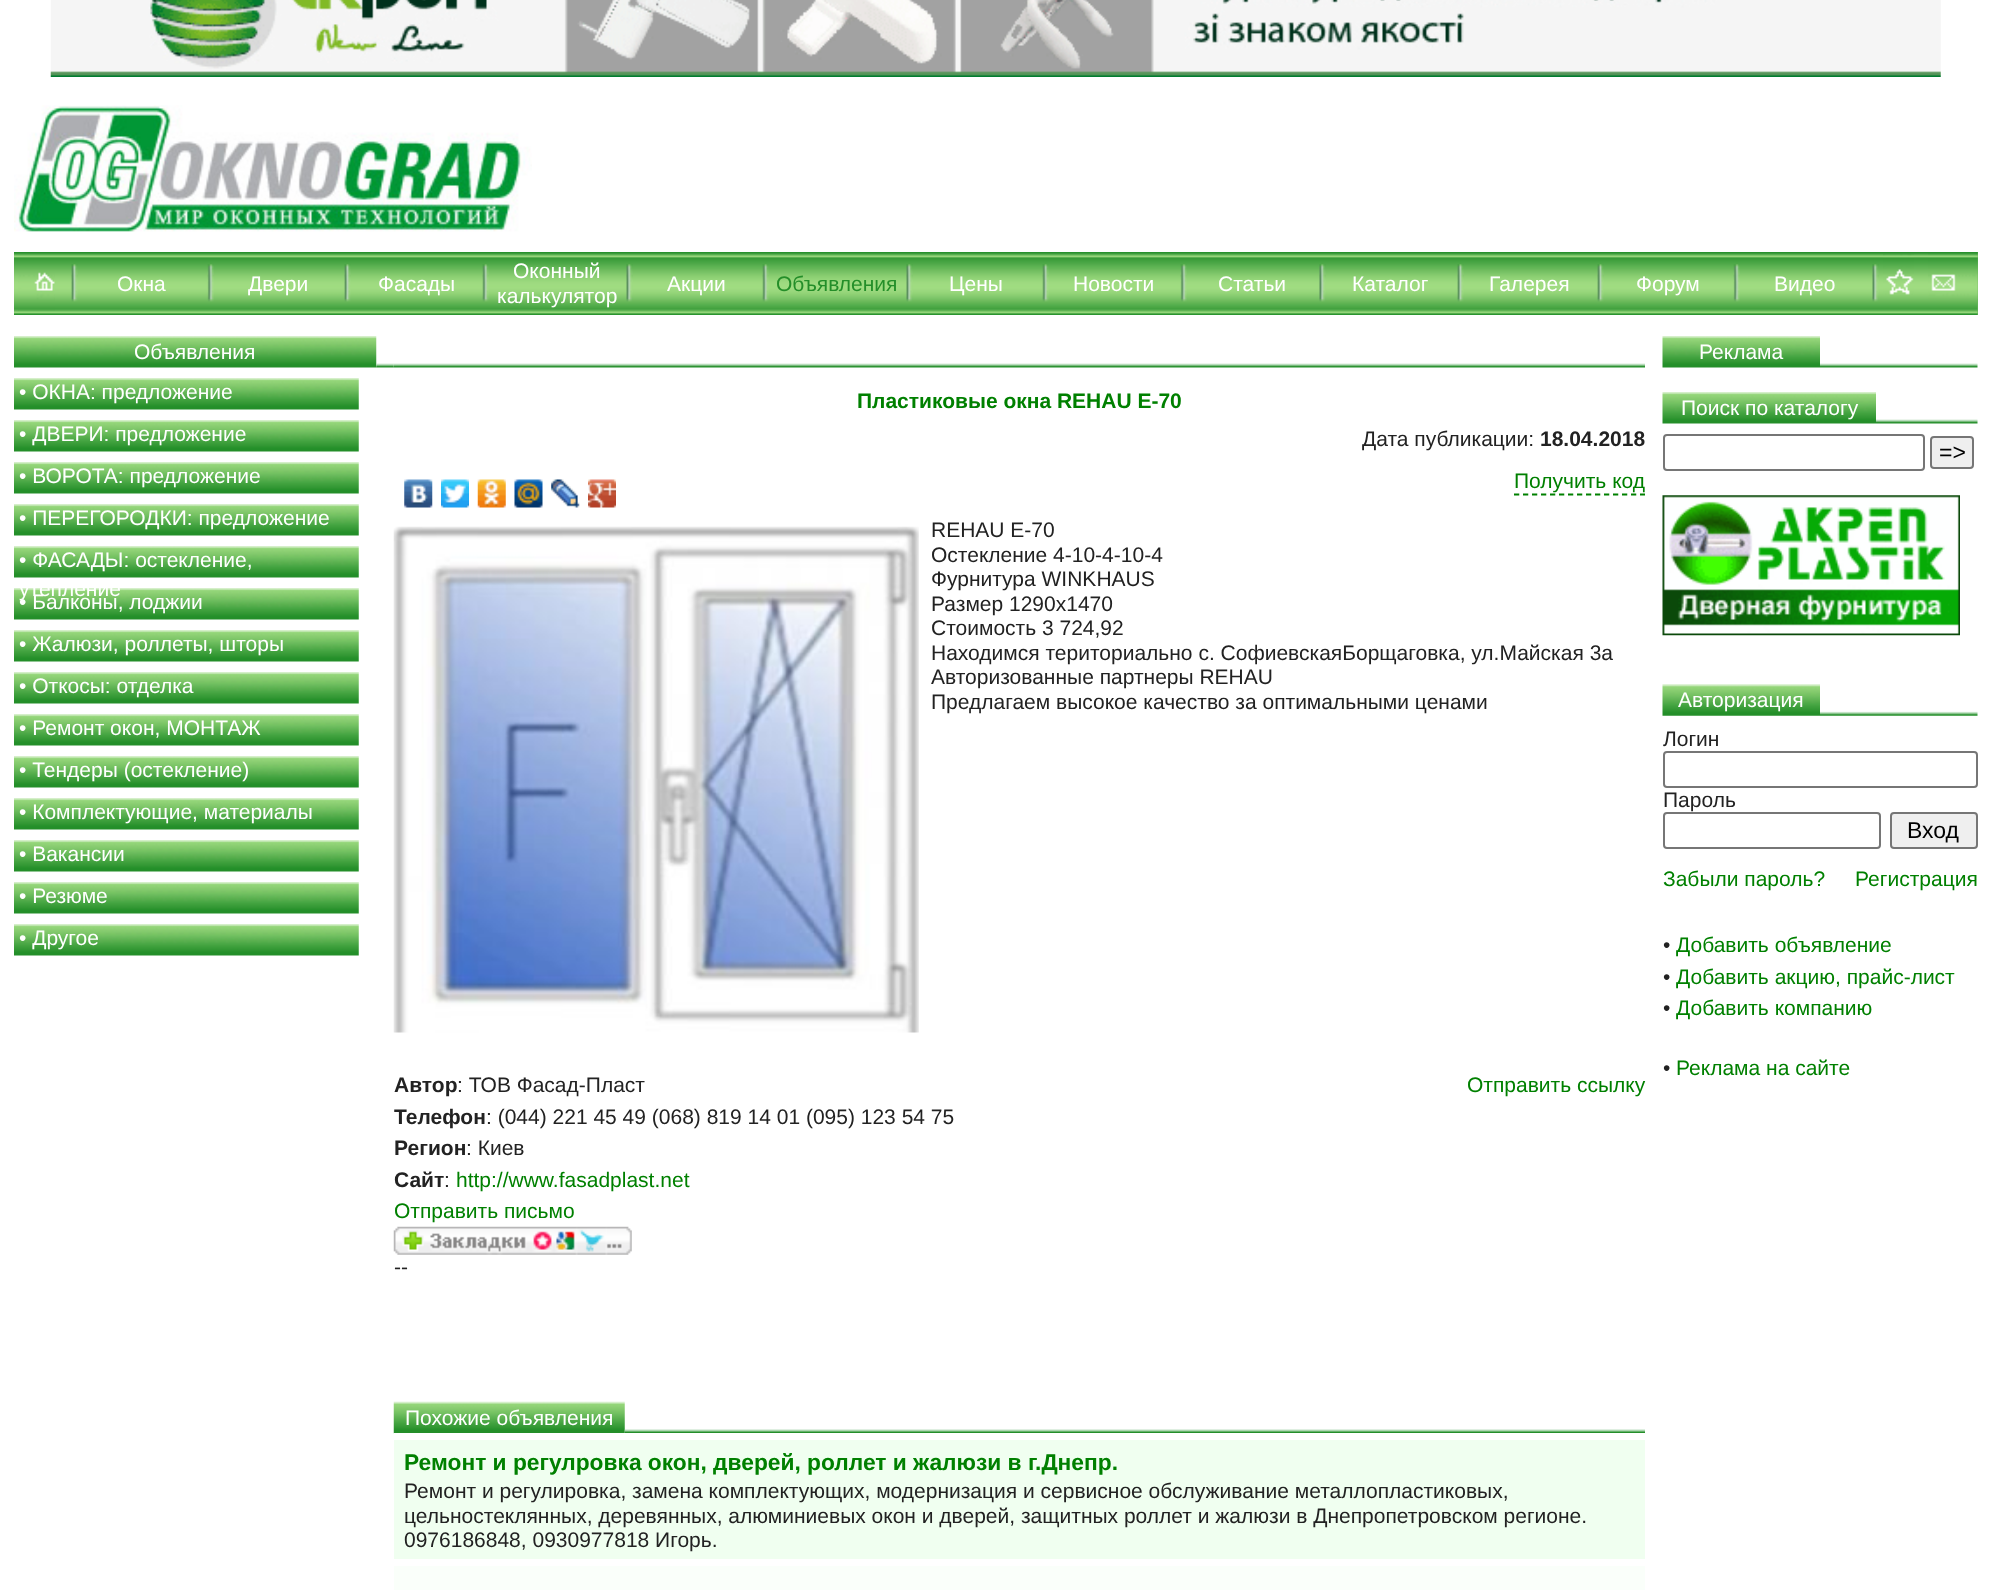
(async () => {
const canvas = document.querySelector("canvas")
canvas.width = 1991
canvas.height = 1590
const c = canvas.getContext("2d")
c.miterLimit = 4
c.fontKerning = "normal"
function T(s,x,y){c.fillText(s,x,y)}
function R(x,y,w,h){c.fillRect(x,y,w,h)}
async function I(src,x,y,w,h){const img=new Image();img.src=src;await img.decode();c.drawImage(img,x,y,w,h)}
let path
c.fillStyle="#fff"
R(0,0,1991,1590)
await I("1.png",50,0,1891,77)
await I("2.png",14,105,518,127)
c.fillStyle="#66b758"
R(1977,252,1,63)
await I("3.png",14,252,1964,63)
await I("4.png",18,272,37,39)
await I("5.png",71,264,7,38)
c.font="21px Liberation Sans"
c.fillStyle="#fff"
T("Окна",117,291)
await I("6.png",207,264,7,38)
T("Двери",248,291)
await I("5.png",344,264,7,38)
T("Фасады",378,291)
await I("7.png",482,264,7,38)
T("Оконный",513,278)
T("калькулятор",497,303)
await I("8.png",626,264,7,38)
T("Акции",667,291)
await I("9.png",762,264,7,38)
c.fillStyle="#248e29"
T("Объявления",776,291)
await I("8.png",906,264,7,38)
c.fillStyle="#fff"
T("Цены",949,291)
await I("9.png",1042,264,7,38)
T("Новости",1073,291)
await I("10.png",1180,264,7,38)
T("Статьи",1218,291)
await I("11.png",1319,264,7,38)
T("Каталог",1352,291)
await I("5.png",1457,264,7,38)
T("Галерея",1489,291)
await I("12.png",1597,264,7,38)
T("Форум",1636,291)
await I("10.png",1733,264,7,38)
T("Видео",1774,291)
await I("8.png",1872,264,7,38)
await I("13.png",1883,254,31,41)
await I("14.png",1928,252,50,47)
await I("15.png",14,336,363,32)
T("Объявления",134,359)
await I("16.png",1662,336,158,32)
T("Реклама",1699,359)
await I("17.png",1820,363,158,5)
await I("18.png",376,363,18,5)
await I("19.png",393,363,1252,5)
await I("20.png",14,378,345,32)
T("• ОКНА: предложение",19,399)
await I("21.png",14,420,345,32)
T("• ДВЕРИ: предложение",19,441)
await I("22.png",14,462,345,32)
T("• ВОРОТА: предложение",19,483)
await I("20.png",14,504,345,32)
T("• ПЕРЕГОРОДКИ: предложение",19,525)
await I("23.png",14,546,345,32)
T("• ФАСАДЫ: остекление,",19,567)
await I("24.png",14,588,345,32)
T("утепление",19,596)
T("• Балконы, лоджии",19,609)
await I("25.png",14,630,345,32)
T("• Жалюзи, роллеты, шторы",19,651)
await I("26.png",14,672,345,32)
T("• Откосы: отделка",19,693)
await I("27.png",14,714,345,32)
T("• Ремонт окон, МОНТАЖ",19,735)
await I("27.png",14,756,345,32)
T("• Тендеры (остекление)",19,777)
await I("28.png",14,798,345,32)
T("• Комплектующие, материалы",19,819)
await I("29.png",14,840,345,32)
T("• Вакансии",19,861)
await I("30.png",14,882,345,32)
T("• Резюме",19,903)
await I("31.png",14,924,345,32)
T("• Другое",19,945)
c.font="bold 21px Liberation Sans"
c.fillStyle="#008000"
T("Пластиковые окна REHAU Е-70",857,408)
c.font="21px Liberation Sans"
c.fillStyle="#222"
T("Дата публикации:",1362,446)
c.font="bold 21px Liberation Sans"
T("18.04.2018",1540,446)
await I("32.png",404,479,29,29)
await I("33.png",441,479,28,29)
await I("34.png",477,479,29,29)
await I("35.png",514,479,29,29)
await I("36.png",551,479,29,29)
await I("37.png",588,479,28,29)
c.font="21px Liberation Sans"
c.fillStyle="#008000"
T("Получить код",1514,488)
path = new Path2D("M1514 494.5h131")
c.strokeStyle="#008000"
c.lineWidth=1.8
c.setLineDash([5.25,3.75])
c.stroke(path)
await I("38.png",393,526,526,507)
c.fillStyle="#222"
T("REHAU E-70",931,537)
T("Остекление 4-10-4-10-4",931,562)
T("Фурнитура WINKHAUS",931,586)
T("Размер 1290x1470",931,611)
T("Стоимость 3 724,92",931,635)
T("Находимся териториально с. СофиевскаяБорщаговка, ул.Майская 3а",931,660)
T("Авторизованные партнеры REHAU",931,684)
T("Предлагаем высокое качество за оптимальными ценами",931,709)
c.font="bold 21px Liberation Sans"
T("Автор",394,1092)
c.font="21px Liberation Sans"
T(": ТОВ Фасад-Пласт",457,1092)
c.font="bold 21px Liberation Sans"
T("Телефон",394,1124)
c.font="21px Liberation Sans"
T(": (044) 221 45 49 (068) 819 14 01 (095) 123 54 75",486,1124)
c.font="bold 21px Liberation Sans"
T("Регион",394,1155)
c.font="21px Liberation Sans"
T(": Киев",466,1155)
c.font="bold 21px Liberation Sans"
T("Сайт",394,1187)
c.font="21px Liberation Sans"
T(":",444,1187)
c.fillStyle="#008000"
T("http://www.fasadplast.net",456,1187)
T("Отправить письмо",394,1218)
await I("39.png",393,1226,239,29)
T("Отправить ссылку",1467,1092)
c.fillStyle="#222"
T("--",394,1274)
await I("40.png",393,1401,232,33)
c.fillStyle="#fff"
T("Похожие объявления",405,1425)
await I("41.png",624,1429,1021,4)
c.fillStyle="#f0fff0"
R(394,1440,1251,119)
c.fillStyle="#fff"
R(394,1433,231,1)
c.font="bold 22.75px Liberation Sans"
c.fillStyle="#008000"
T("Ремонт и регулровка окон, дверей, роллет и жалюзи в г.Днепр.",404,1470)
c.font="21px Liberation Sans"
c.fillStyle="#222"
T("Ремонт и регулировка, замена комплектующих, модернизация и сервисное обслуживание металлопластиковых,",404,1498)
T("цельностеклянных, деревянных, алюминиевых окон и дверей, защитных роллет и жалюзи в Днепропетровском регионе.",404,1523)
T("0976186848, 0930977818 Игорь.",404,1547)
c.fillStyle="#fafffa"
R(394,1566,1251,24)
await I("42.png",1662,392,214,32)
c.fillStyle="#fff"
T("Поиск по каталогу",1681,415)
await I("43.png",1876,419,102,5)
c.beginPath()
c.roundRect(1664,435,260,35,3)
c.strokeStyle="#767676"
c.lineWidth=2
c.setLineDash([])
c.stroke()
c.fillStyle="#efefef"
c.beginPath()
c.roundRect(1931,437,42,31,3)
c.fill()
c.stroke()
c.font="23px Liberation Sans"
c.fillStyle="#000"
T("=>",1939,460)
await I("44.png",1662,495,298,141)
await I("45.png",1662,684,158,32)
c.font="21px Liberation Sans"
c.fillStyle="#fff"
T("Авторизация",1678,707)
await I("46.png",1820,711,158,5)
c.fillStyle="#222"
T("Логин",1663,746)
c.beginPath()
c.roundRect(1664,752,313,35,3)
c.stroke()
T("Пароль",1663,807)
c.beginPath()
c.roundRect(1664,813,216,35,3)
c.stroke()
c.fillStyle="#efefef"
c.beginPath()
c.roundRect(1891,813,86,35,3)
c.fill()
c.stroke()
c.font="23px Liberation Sans"
c.fillStyle="#000"
T("Вход",1907,838)
c.font="21px Liberation Sans"
c.fillStyle="#008000"
T("Забыли пароль?",1663,886)
T("Регистрация",1855,886)
c.fillStyle="#222"
T("•",1663,952)
c.fillStyle="#008000"
T("Добавить объявление",1676,952)
c.fillStyle="#222"
T("•",1663,984)
c.fillStyle="#008000"
T("Добавить акцию, прайс-лист",1676,984)
c.fillStyle="#222"
T("•",1663,1015)
c.fillStyle="#008000"
T("Добавить компанию",1676,1015)
c.fillStyle="#222"
T("•",1663,1075)
c.fillStyle="#008000"
T("Реклама на сайте",1676,1075)
})()
